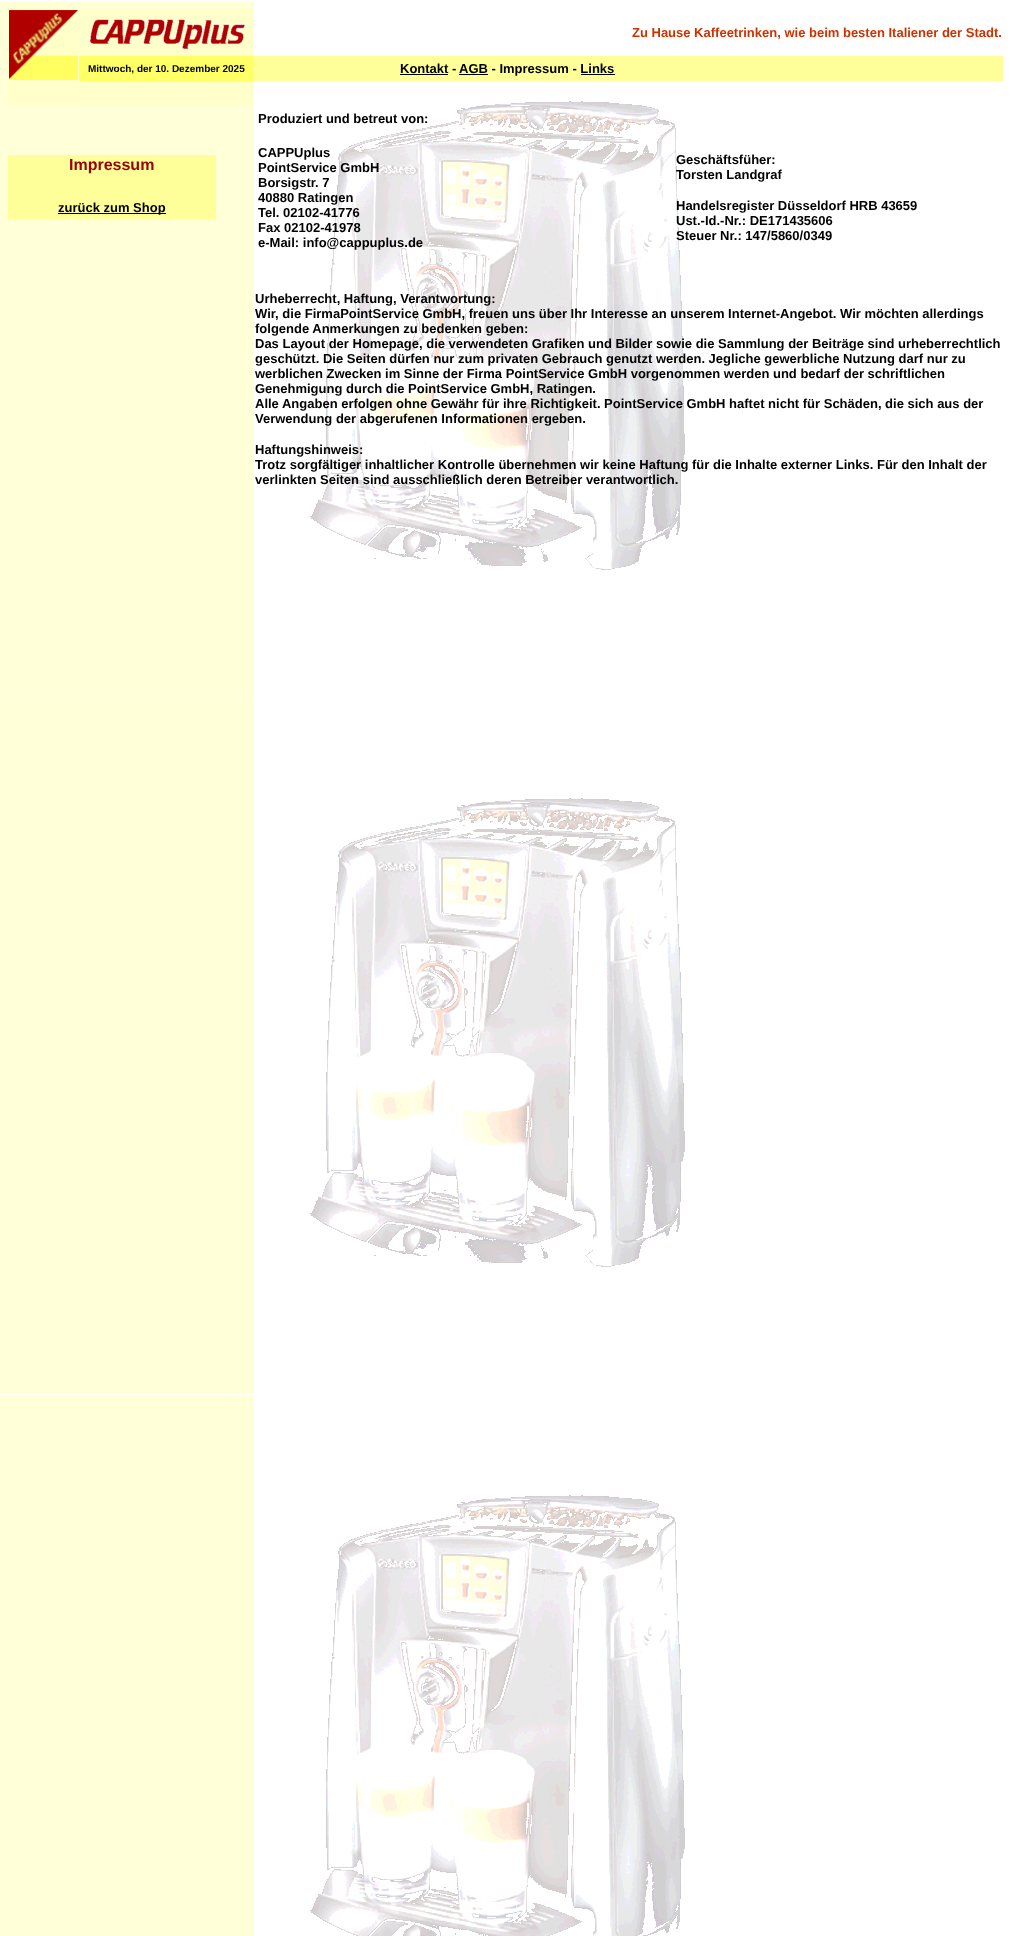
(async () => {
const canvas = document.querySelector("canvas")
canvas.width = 1026
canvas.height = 1936
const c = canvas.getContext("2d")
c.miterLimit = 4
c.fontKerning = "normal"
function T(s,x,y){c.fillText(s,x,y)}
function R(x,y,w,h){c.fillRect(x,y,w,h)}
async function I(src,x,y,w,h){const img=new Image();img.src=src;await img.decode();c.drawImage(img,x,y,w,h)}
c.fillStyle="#fff"
R(0,0,1026,1936)
await I("1.png",0,1,685,1935)
c.fillStyle="#ffc"
R(8,8,71,97)
await I("2.png",9,10,69,70)
R(79,8,174,48)
await I("3.png",90,19,155,30)
c.fillStyle="#fff"
R(253,8,1,48)
c.font="bold 13px Liberation Sans"
c.fillStyle="#c30"
T("Zu Hause Kaffeetrinken, wie beim besten Italiener der Stadt.",632,37)
c.fillStyle="#ff9"
R(253,56,750,25)
c.fillStyle="#ff6"
R(79,56,174,25)
c.font="bold 10px Liberation Sans"
c.fillStyle="#000"
T("Mittwoch, der 10. Dezember 2025",88,72)
c.font="bold 13px Liberation Sans"
T("Kontakt -",400,73)
R(400,74,48,1)
R(459,74,29,1)
T("AGB - Impressum - Links",459,73)
R(581,74,34,1)
c.fillStyle="#ffc"
R(79,81,174,24)
c.fillStyle="#fff"
R(253,81,1,24)
c.fillStyle="#ff9"
R(8,155,208,64)
c.font="bold 16px Liberation Sans"
c.fillStyle="#900"
T("Impressum",69,170)
c.fillStyle="#000"
R(58,213,108,1)
c.font="bold 13px Liberation Sans"
T("zurück zum Shop",58,212)
T("Produziert und betreut von:",258,123)
T("CAPPUplus",258,157)
T("PointService GmbH",258,172)
T("Borsigstr. 7",258,187)
T("40880 Ratingen",258,202)
T("Tel. 02102-41776",258,217)
T("Fax 02102-41978",258,232)
T("e-Mail: info@cappuplus.de",258,247)
T("Geschäftsfüher:",676,164)
T("Torsten Landgraf",676,179)
T("Handelsregister Düsseldorf HRB 43659",676,210)
T("Ust.-Id.-Nr.: DE171435606",676,225)
T("Steuer Nr.: 147/5860/0349",676,240)
T("Urheberrecht, Haftung, Verantwortung:",255,303)
T("Wir, die FirmaPointService GmbH, freuen uns über Ihr Interesse an unserem Internet-Angebot. Wir möchten allerdings",255,318)
T("folgende Anmerkungen zu bedenken geben:",255,333)
T("Das Layout der Homepage, die verwendeten Grafiken und Bilder sowie die Sammlung der Beiträge sind urheberrechtlich",255,348)
T("geschützt. Die Seiten dürfen nur zum privaten Gebrauch genutzt werden. Jegliche gewerbliche Nutzung darf nur zu",255,363)
T("werblichen Zwecken im Sinne der Firma PointService GmbH vorgenommen werden und bedarf der schriftlichen",255,378)
T("Genehmigung durch die PointService GmbH, Ratingen.",255,393)
T("Alle Angaben erfolgen ohne Gewähr für ihre Richtigkeit. PointService GmbH haftet nicht für Schäden, die sich aus der",255,408)
T("Verwendung der abgerufenen Informationen ergeben.",255,423)
T("Haftungshinweis:",255,454)
T("Trotz sorgfältiger inhaltlicher Kontrolle übernehmen wir keine Haftung für die Inhalte externer Links. Für den Inhalt der",255,469)
T("verlinkten Seiten sind ausschließlich deren Betreiber verantwortlich.",255,484)
})()
